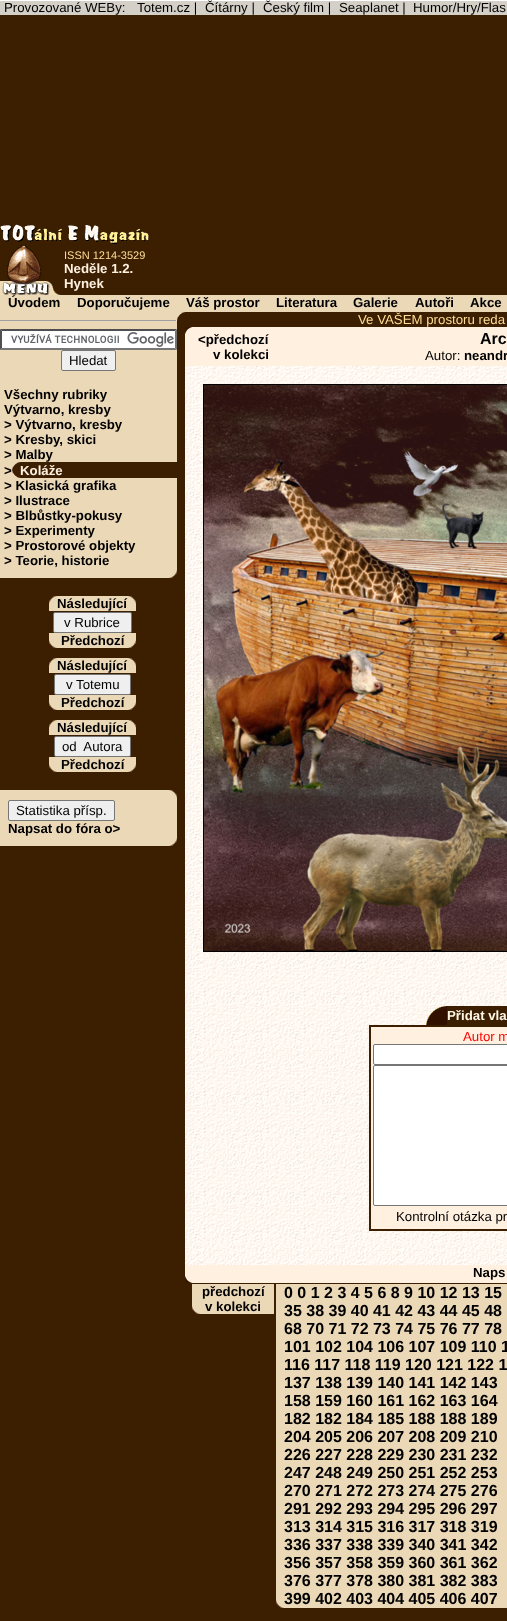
(async () => {
const canvas = document.querySelector("canvas")
canvas.width = 507
canvas.height = 1621
const c = canvas.getContext("2d")
c.miterLimit = 4
c.fontKerning = "normal"
function T(s,x,y){c.fillText(s,x,y)}
function R(x,y,w,h){c.fillRect(x,y,w,h)}
async function I(src,x,y,w,h){const img=new Image();img.src=src;await img.decode();c.drawImage(img,x,y,w,h)}
let path
c.fillStyle="#fff"
R(0,0,507,1621)
await I("1.png",185,366,322,899)
c.fillStyle="#d4d0c8"
R(0,1,507,14)
c.font="13.25px Liberation Sans"
c.fillStyle="#000"
T("Provozované WEBy:",4,12)
T("Totem.cz |",137,12)
T("Čítárny |",205,12)
T("Český film |",263,12)
T("Seaplanet |",339,12)
T("Humor/Hry/Flas",413,12)
c.fillStyle="#3c1e00"
R(0,15,507,280)
await I("2.png",0,224,149,20)
await I("3.png",0,245,61,50)
c.font="11px Liberation Sans"
c.fillStyle="#ffde96"
T("ISSN 1214-3529",64,259)
c.font="bold 13.25px Liberation Sans"
c.fillStyle="#fff0e0"
T("Neděle 1.2.",64,273)
T("Hynek",64,288)
c.fillStyle="#ebd8b7"
R(0,295,507,17)
c.fillStyle="#000"
T("Úvodem",8,307)
T("Doporučujeme",77,307)
T("Váš prostor",186,307)
T("Literatura",276,307)
T("Galerie",353,307)
T("Autoři",415,307)
T("Akce",470,307)
c.fillStyle="#3c1e00"
R(0,313,185,1308)
await I("4.png",177,312,8,8)
c.fillStyle="#ebd8b7"
R(0,312,177,266)
c.fillStyle="#9f9f9f"
R(0,320,177,1)
c.fillStyle="#eee"
R(176,320,1,1)
c.fillStyle="#fff"
R(0,329,177,21)
await I("5.png",11,332,163,15)
c.fillStyle="#4f4f4f"
path = new Path2D("M0 329h177l-2 2h-173z")
c.fill(path)
c.fillStyle="#767676"
path = new Path2D("M177 329v21l-2-2v-17z")
c.fill(path)
path = new Path2D("M177 350h-177l2-2h173z")
c.fill(path)
c.fillStyle="#4f4f4f"
path = new Path2D("M0 350v-21l2 2v17z")
c.fill(path)
c.fillStyle="#efefef"
c.beginPath()
c.roundRect(61.5,350.5,54,20,1.5)
c.fill()
c.strokeStyle="#767676"
c.stroke()
c.font="13.25px Liberation Sans"
c.fillStyle="#000"
T("Hledat",69,365)
c.font="bold 13.25px Liberation Sans"
T("Všechny rubriky",4,399)
T("Výtvarno, kresby",4,414)
T("> Výtvarno, kresby",4,429)
T("> Kresby, skici",4,444)
T("> Malby",4,459)
c.fillStyle="#3c1e00"
R(13,462,164,16)
c.fillStyle="#000"
T(">",4,475)
await I("4.png",12,462,8,8)
c.fillStyle="#fff0e0"
T("Koláže",20,475)
await I("6.png",12,470,8,8)
c.fillStyle="#000"
T("> Klasická grafika",4,490)
T("> Ilustrace",4,505)
T("> Blbůstky-pokusy",4,520)
T("> Experimenty",4,535)
T("> Prostorové objekty",4,550)
T("> Teorie, historie",4,565)
await I("7.png",169,570,8,8)
c.fillStyle="#ebd8b7"
R(49,596,87,15)
await I("8.png",49,596,8,8)
c.fillStyle="#000"
T("Následující",57,608)
await I("9.png",128,596,8,8)
c.fillStyle="#efefef"
c.beginPath()
c.roundRect(53.5,612.5,78,20,1.5)
c.fill()
c.stroke()
c.font="13.25px Liberation Sans"
c.fillStyle="#000"
T("v Rubrice",64,627)
c.fillStyle="#ebd8b7"
R(49,633,87,15)
await I("10.png",49,640,8,8)
c.font="bold 13.25px Liberation Sans"
c.fillStyle="#000"
T("Předchozí",61,645)
await I("7.png",128,640,8,8)
c.fillStyle="#ebd8b7"
R(49,658,87,15)
await I("8.png",49,658,8,8)
c.fillStyle="#000"
T("Následující",57,670)
await I("9.png",128,658,8,8)
c.fillStyle="#efefef"
c.beginPath()
c.roundRect(54.5,674.5,76,20,1.5)
c.fill()
c.stroke()
c.font="13.25px Liberation Sans"
c.fillStyle="#000"
T("v Totemu",66,689)
c.fillStyle="#ebd8b7"
R(49,695,87,15)
await I("10.png",49,702,8,8)
c.font="bold 13.25px Liberation Sans"
c.fillStyle="#000"
T("Předchozí",61,707)
await I("7.png",128,702,8,8)
c.fillStyle="#ebd8b7"
R(49,720,87,15)
await I("8.png",49,720,8,8)
c.fillStyle="#000"
T("Následující",57,732)
await I("9.png",128,720,8,8)
c.fillStyle="#efefef"
c.beginPath()
c.roundRect(54.5,736.5,76,20,1.5)
c.fill()
c.stroke()
c.font="13.25px Liberation Sans"
c.fillStyle="#000"
T("od  Autora",62,751)
c.fillStyle="#ebd8b7"
R(49,757,87,15)
await I("10.png",49,764,8,8)
c.font="bold 13.25px Liberation Sans"
c.fillStyle="#000"
T("Předchozí",61,769)
await I("7.png",128,764,8,8)
c.fillStyle="#ebd8b7"
R(0,790,177,56)
await I("9.png",169,790,8,8)
c.fillStyle="#efefef"
c.beginPath()
c.roundRect(8.5,800.5,106,20,1.5)
c.fill()
c.stroke()
c.font="13.25px Liberation Sans"
c.fillStyle="#000"
T("Statistika přísp.",16,815)
c.font="bold 13.25px Liberation Sans"
T("Napsat do fóra o>",8,833)
await I("7.png",169,838,8,8)
c.fillStyle="#3c1e00"
R(185,312,322,15)
c.font="13.25px Liberation Sans"
c.fillStyle="#ffde96"
T("Ve VAŠEM prostoru reda",358,324)
c.fillStyle="#fff0e0"
R(185,327,322,39)
await I("11.png",185,327,7,7)
c.font="bold 13.25px Liberation Sans"
c.fillStyle="#000"
T("<předchozí",198,344)
T("v kolekci",213,359)
c.font="bold 16px Liberation Sans"
T("Arc",480,344)
c.font="13.25px Liberation Sans"
T("Autor:",425,360)
c.font="bold 13.25px Liberation Sans"
T("neandr",464,360)
c.strokeStyle="#000"
c.strokeRect(203.5,384.5,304,567)
await I("12.png",204,385,303,566)
await I("13.png",426,1006,21,19)
c.fillStyle="#3c1e00"
R(447,1006,60,19)
c.fillStyle="#fff8e8"
T("Přidat vla",447,1020)
c.fillStyle="#fff0e0"
R(371,1027,136,202)
c.strokeStyle="#3c1e00"
c.strokeRect(369.5,1025.5,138,205)
c.strokeRect(370.5,1026.5,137,203)
c.font="13.25px Liberation Sans"
c.fillStyle="#f00"
T("Autor m",463,1041)
c.fillStyle="#fff"
c.beginPath()
c.roundRect(373.5,1044.5,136,20,1.5)
c.fill()
c.strokeStyle="#767676"
c.stroke()
c.beginPath()
c.roundRect(373.5,1065.5,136,140,1.5)
c.fill()
c.stroke()
c.fillStyle="#000"
T("Kontrolní otázka pr",396,1221)
c.fillStyle="#fff0e0"
R(185,1265,322,18)
await I("14.png",185,1276,7,7)
c.font="bold 13.25px Liberation Sans"
c.fillStyle="#000"
T("Naps",473,1277)
c.fillStyle="#3c1e00"
R(185,1283,322,338)
c.fillStyle="#ebd8b7"
R(192,1284,82,30)
await I("10.png",192,1306,8,8)
c.fillStyle="#000"
T("předchozí",202,1296)
T("v kolekci",205,1311)
c.fillStyle="#ebd8b7"
R(276,1284,231,324)
await I("10.png",276,1600,8,8)
c.font="bold 16px Liberation Sans"
c.fillStyle="#000"
T("0 0 1 2 3 4 5 6 8 9 10 12 13 15",284,1298)
T("35 38 39 40 41 42 43 44 45 48",284,1316)
T("68 70 71 72 73 74 75 76 77 78",284,1334)
T("101 102 104 106 107 109 110 1",284,1352)
T("116 117 118 119 120 121 122 1",284,1370)
T("137 138 139 140 141 142 143",284,1388)
T("158 159 160 161 162 163 164",284,1406)
T("182 182 184 185 188 188 189",284,1424)
T("204 205 206 207 208 209 210",284,1442)
T("226 227 228 229 230 231 232",284,1460)
T("247 248 249 250 251 252 253",284,1478)
T("270 271 272 273 274 275 276",284,1496)
T("291 292 293 294 295 296 297",284,1514)
T("313 314 315 316 317 318 319",284,1532)
T("336 337 338 339 340 341 342",284,1550)
T("356 357 358 359 360 361 362",284,1568)
T("376 377 378 380 381 382 383",284,1586)
T("399 402 403 404 405 406 407",284,1604)
})()
